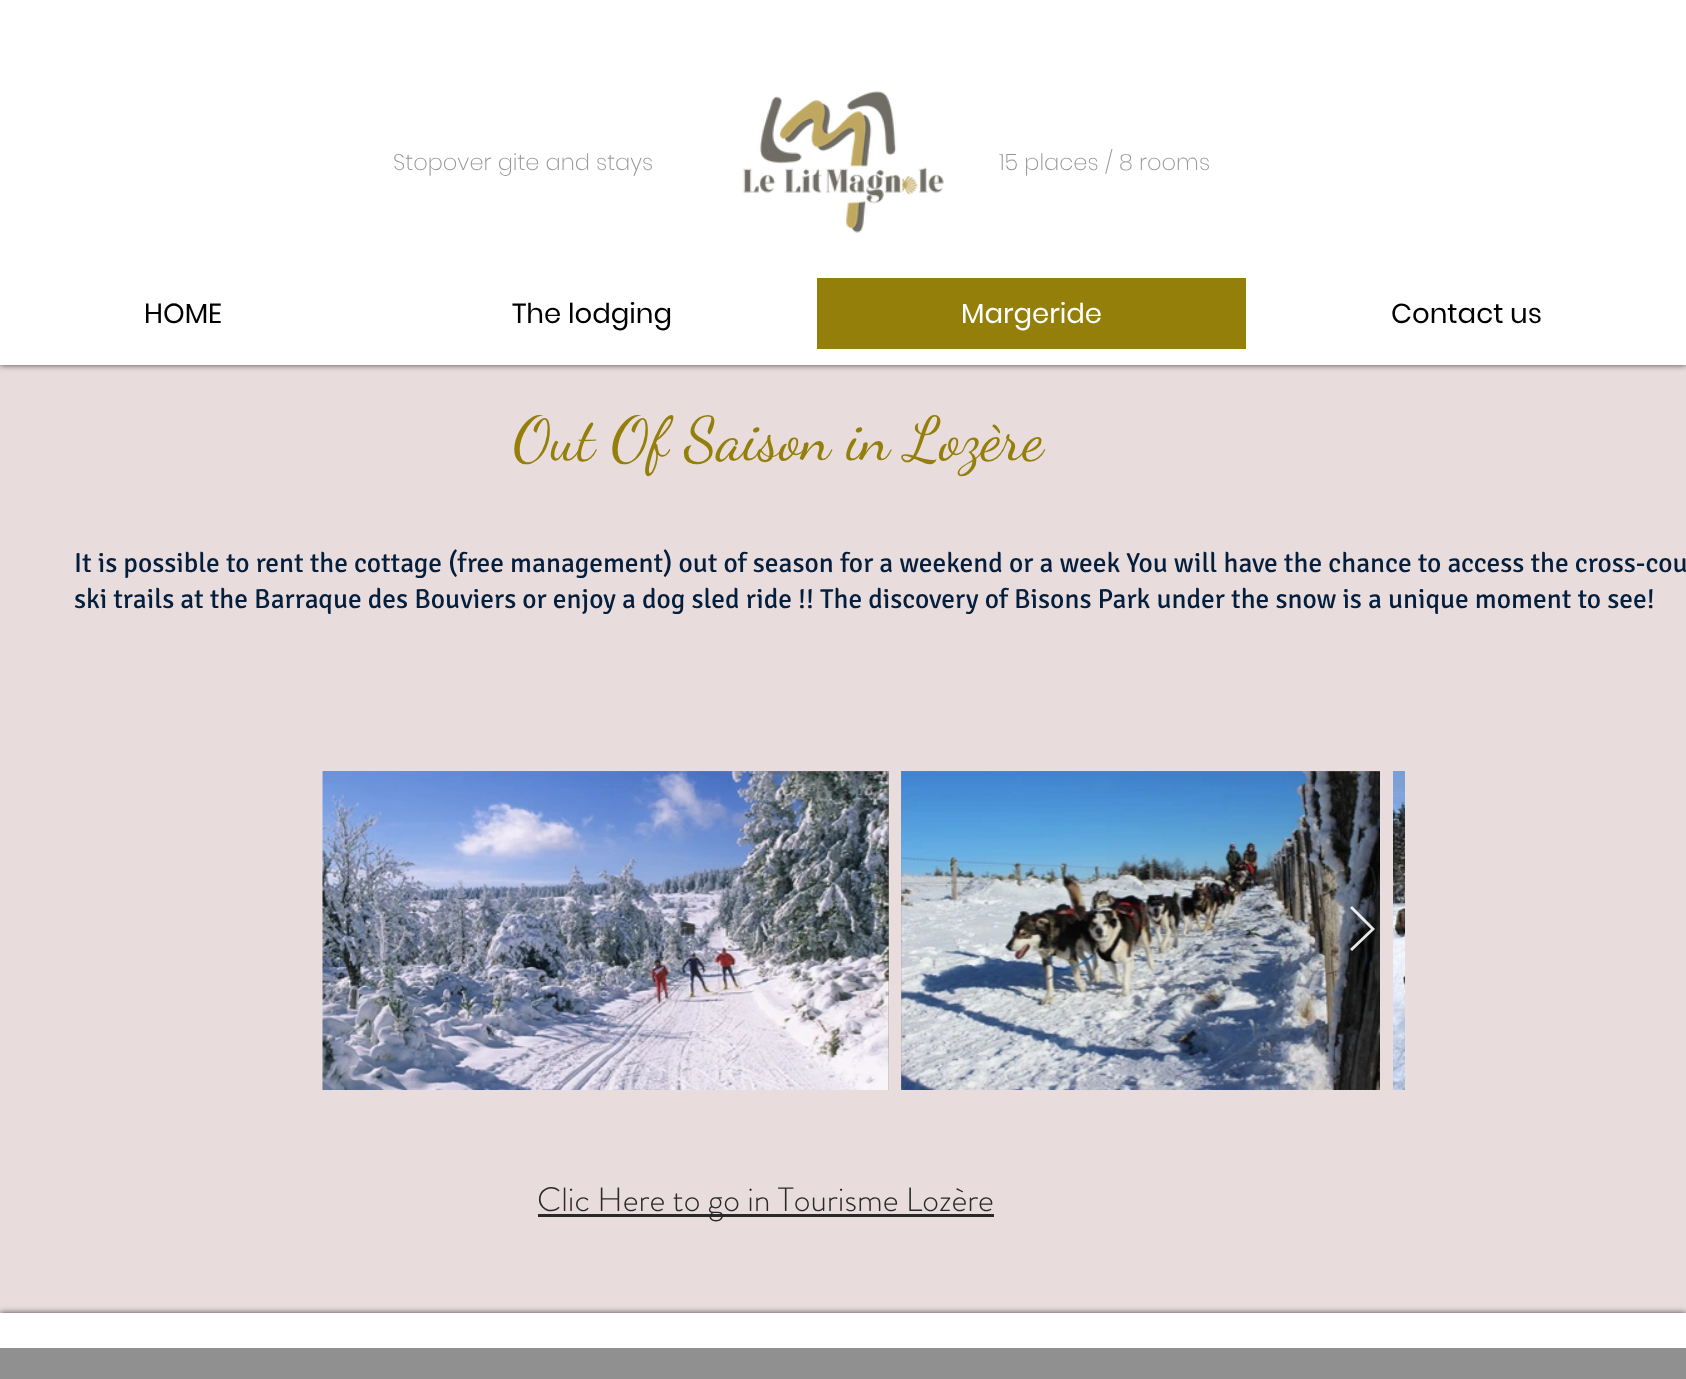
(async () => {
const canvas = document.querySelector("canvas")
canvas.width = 1686
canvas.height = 1379
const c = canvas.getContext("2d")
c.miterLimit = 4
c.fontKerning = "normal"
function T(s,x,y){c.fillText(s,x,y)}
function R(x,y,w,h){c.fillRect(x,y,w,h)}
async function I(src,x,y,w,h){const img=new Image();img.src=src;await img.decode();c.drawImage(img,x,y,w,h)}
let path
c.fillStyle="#e8dcdc"
R(0,0,1686,1379)
c.fillStyle="#000000b3"
c.filter="blur(3px)"
c.beginPath()
c.rect(0,0,1686,365)
c.fill()
c.filter="none"
c.fillStyle="#fff"
R(0,0,1686,365)
c.font="200 22.5px Poppins"
c.fillStyle="#959595"
T("Stopover gite and stays",393,170)
await I("1.png",742,91,202,142)
T("15 places / 8 rooms",999,170)
c.font="27.5px Poppins"
c.fillStyle="#000"
T("HOME",144,323)
T("The lodging",512,323)
c.fillStyle="#957f0b"
R(817,278,429,71)
c.fillStyle="#fff"
T("Margeride",961,323)
c.fillStyle="#000"
T("Contact us",1391,323)
c.font="61.25px Dancing Script"
c.fillStyle="#957f0b"
T("Out Of Saison in Lozère",513,459)
c.font="27.5px Signika"
c.fillStyle="#041f3e"
T("It is possible to rent the cottage (free management) out of season for a weekend or a week You will have the chance to access the cross-cou",74,572)
T("ski trails at the Barraque des Bouviers or enjoy a dog sled ride !! The discovery of Bisons Park under the snow is a unique moment to see!",74,608)
c.fillStyle="#909090"
R(323,771,566,319)
await I("2.png",322,771,567,319)
R(901,771,479,319)
await I("3.png",901,771,479,319)
await I("4.png",1393,771,12,319)
c.fillStyle="#ffffffe6"
path = new Path2D("M1350 908l2-2l23 23l-23 22l-2-2l21-20z")
c.fill(path)
c.fillStyle="#292929"
R(538,1214,456,3)
c.font="300 33.75px 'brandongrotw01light'"
T("Clic Here to go in Tourisme Lozère",537,1211)
c.fillStyle="#000000b3"
c.filter="blur(3px)"
c.beginPath()
c.rect(0,1313,1686,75)
c.fill()
c.filter="none"
c.fillStyle="#fff"
R(0,1313,1686,35)
c.fillStyle="#909090"
R(0,1348,1686,31)
})()
